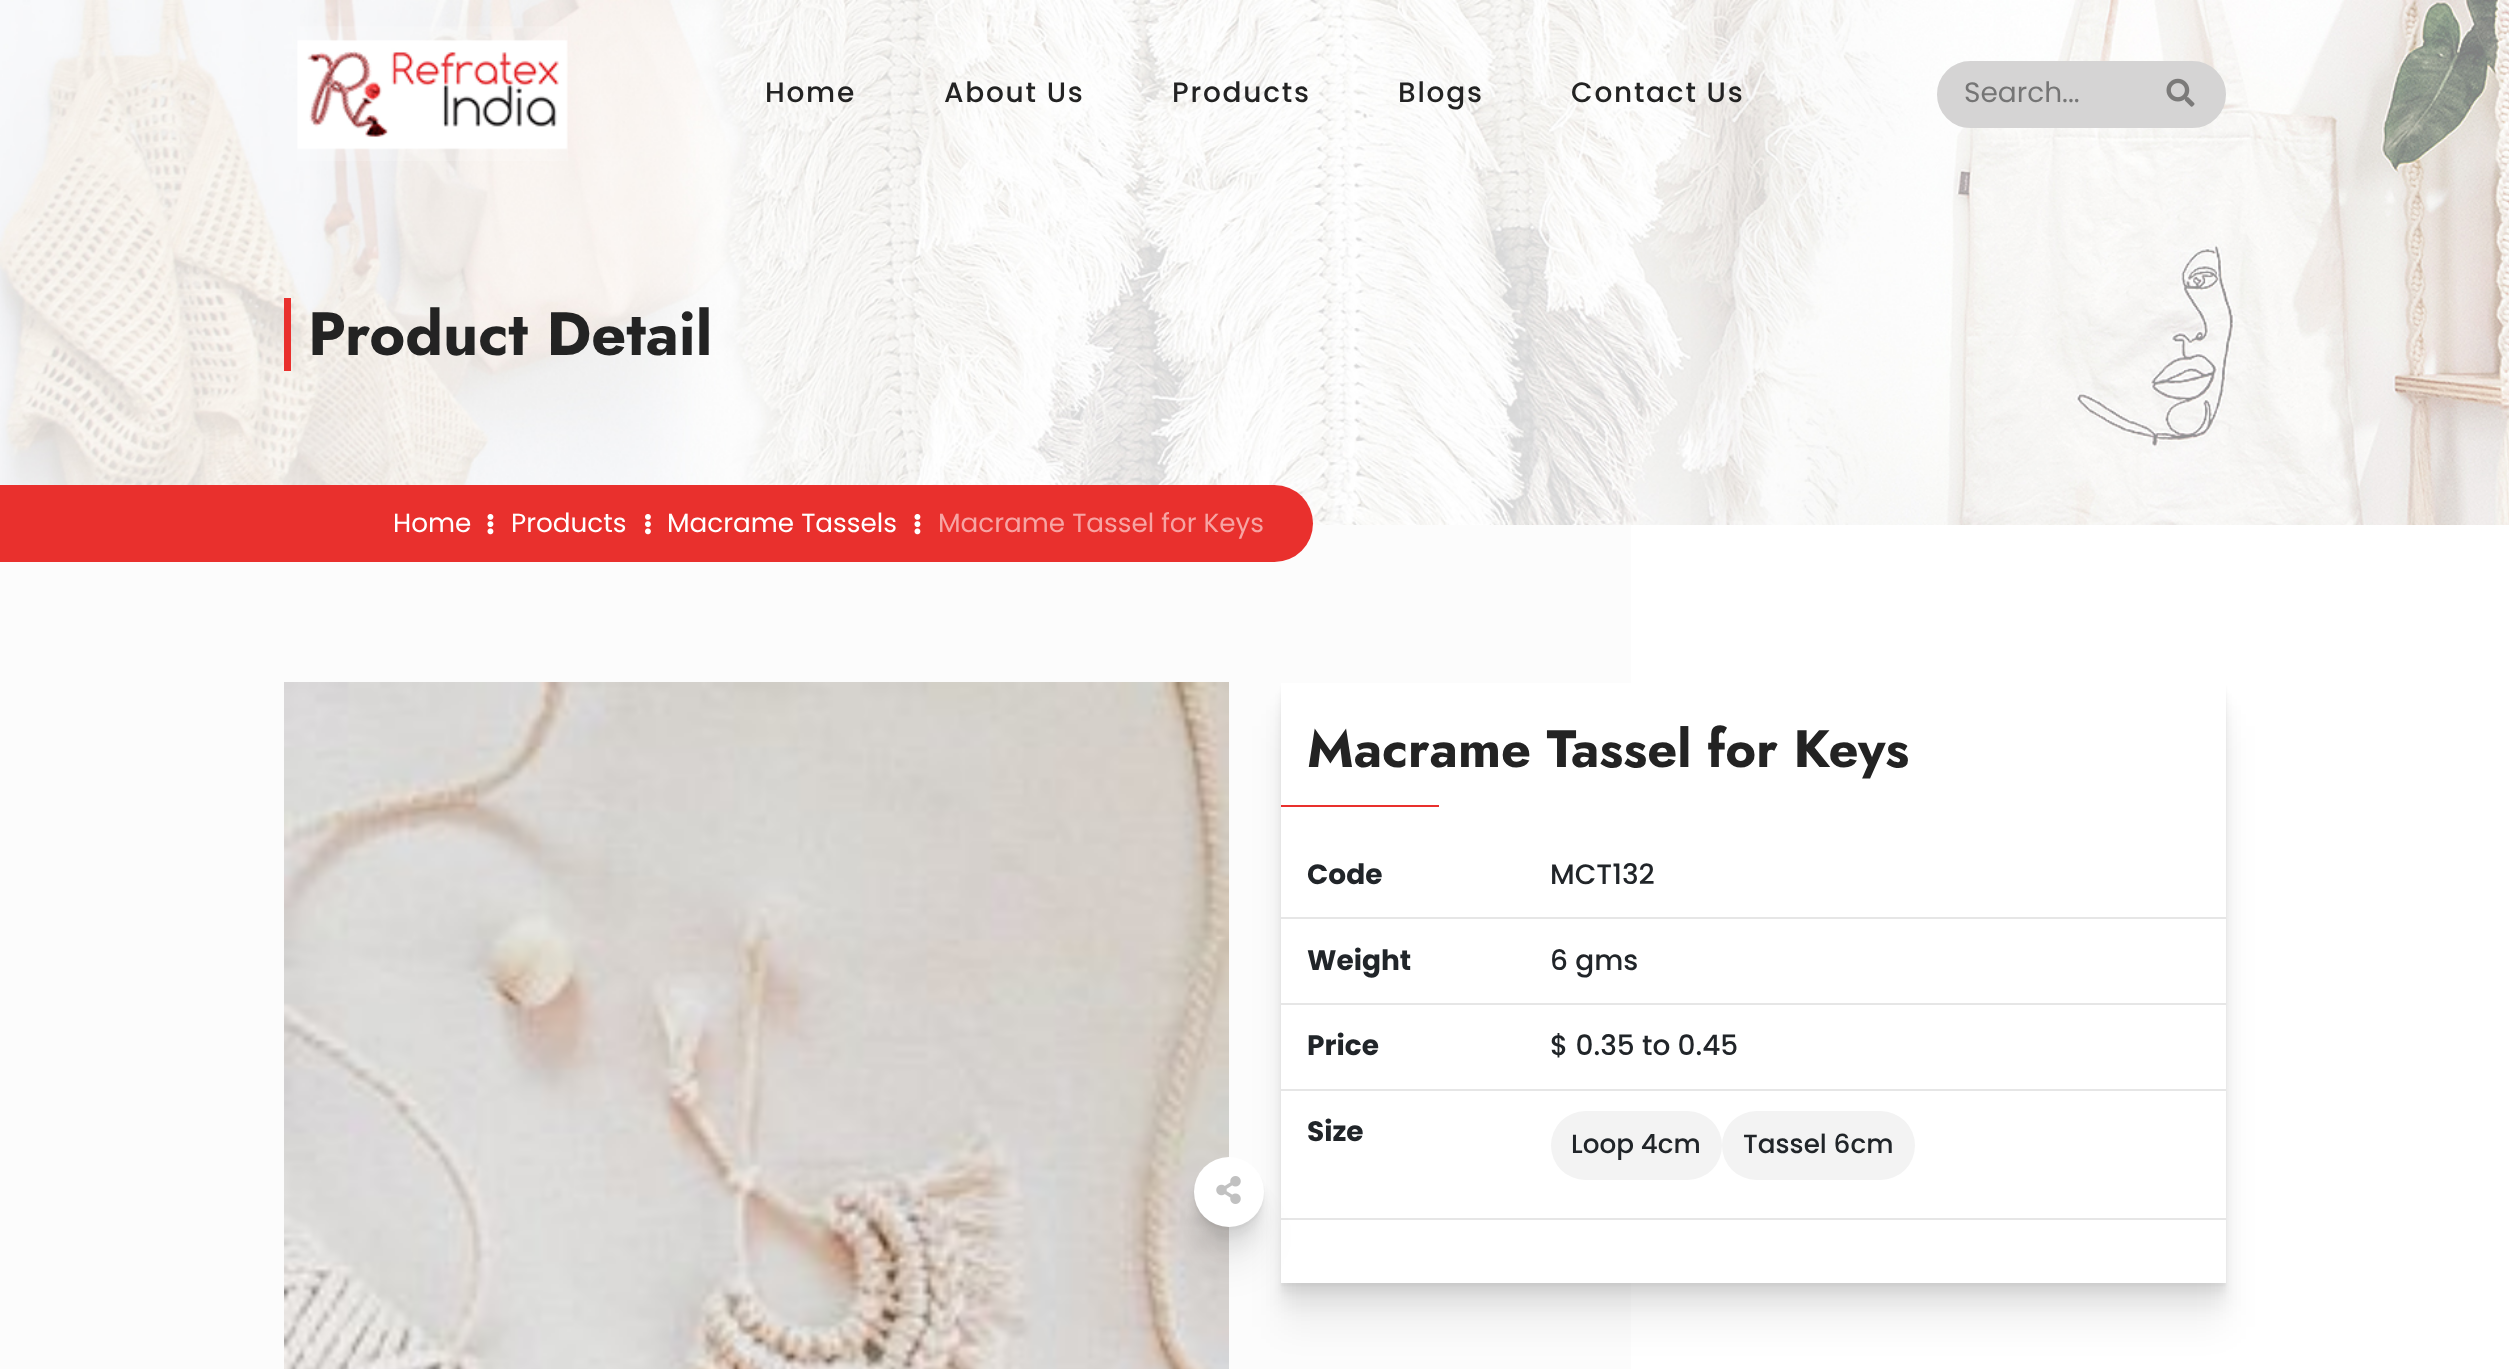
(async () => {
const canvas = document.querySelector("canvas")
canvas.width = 2509
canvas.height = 1369
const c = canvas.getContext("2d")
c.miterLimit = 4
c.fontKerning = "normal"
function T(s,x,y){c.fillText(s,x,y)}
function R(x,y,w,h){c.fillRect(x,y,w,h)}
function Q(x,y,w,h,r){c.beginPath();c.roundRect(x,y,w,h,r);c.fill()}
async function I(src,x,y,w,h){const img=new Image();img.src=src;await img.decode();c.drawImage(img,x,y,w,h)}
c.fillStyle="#fff"
R(0,0,2509,1369)
await I("3.png",0,0,2509,525)
await I("1.png",297,26,271,135)
c.letterSpacing="1.75px"
c.font="500 28px Poppins"
c.fillStyle="#232323"
T("Home",765,102)
T("About Us",944,102)
T("Products",1172,102)
T("Blogs",1398,102)
T("Contact Us",1571,102)
c.fillStyle="#d5d4d4"
c.beginPath()
c.roundRect(1938,62,287,65,32.5)
c.fill()
c.strokeStyle="#d5d4d4"
c.lineWidth=2
c.stroke()
c.letterSpacing="0px"
c.font="28px Poppins"
c.fillStyle="#757575"
T("Search...",1964,102)
await I("2.png",2166,78,29,29)
c.fillStyle="#e9302d"
R(284,298,7,73)
c.font="bold 61.25px Jost"
c.fillStyle="#232323"
T("Product Detail",308,355)
c.fillStyle="#fcfcfc"
R(0,525,1631,844)
c.fillStyle="#e9302d"
c.beginPath()
c.roundRect(0,485,1313,77,[0,38.5,38.5,0])
c.fill()
c.font="26.25px Poppins"
c.fillStyle="#fff"
T("Home",393,532)
await I("4.png",487,514,7,21)
T("Products",511,532)
await I("5.png",645,514,6,21)
T("Macrame Tassels",667,532)
await I("4.png",914,514,7,21)
c.fillStyle="#f7a4a3"
T("Macrame Tassel for Keys",938,532)
c.fillStyle="#0000000d"
c.filter="blur(17.5px)"
c.beginPath()
c.rect(1281,726,945,601)
c.fill()
c.filter="none"
await I("6.png",284,682,945,687)
c.fillStyle="#0000000f"
c.filter="blur(8.5px)"
c.beginPath()
c.rect(1281,705,945,601)
c.fill()
c.filter="none"
c.fillStyle="#0000000d"
c.filter="blur(3.5px)"
c.beginPath()
c.rect(1281,693,945,600)
c.fill()
c.filter="none"
c.fillStyle="#0000000a"
c.filter="blur(1px)"
c.beginPath()
c.rect(1281,686,945,600)
c.fill()
c.filter="none"
c.fillStyle="#fff"
R(1281,683,945,600)
c.fillStyle="#e6e6e6"
R(1281,1218,945,2)
c.fillStyle="#0000000d"
c.filter="blur(17.5px)"
c.beginPath()
c.roundRect(1194,1201,70,70,35)
c.fill()
c.filter="none"
c.fillStyle="#0000000f"
c.filter="blur(8.5px)"
c.beginPath()
c.roundRect(1194,1180,70,70,35)
c.fill()
c.filter="none"
c.fillStyle="#0000000d"
c.filter="blur(3.5px)"
c.beginPath()
c.roundRect(1194,1167,70,70,35)
c.fill()
c.filter="none"
c.fillStyle="#0000000a"
c.filter="blur(1px)"
c.beginPath()
c.roundRect(1194,1160,70,70,35)
c.fill()
c.filter="none"
c.fillStyle="#fff"
c.beginPath()
c.arc(1229,1192,35,0,7)
c.fill()
await I("7.png",1216,1176,25,28)
c.font="bold 52.5px Jost"
c.fillStyle="#232323"
T("Macrame Tassel for Keys",1307,767)
c.fillStyle="#e9302d"
R(1281,805,158,2)
c.font="bold 28px Poppins"
c.fillStyle="#212529"
T("Code",1307,884)
c.fillStyle="#e6e6e6"
R(1281,917,945,2)
c.font="500 28px Poppins"
c.fillStyle="#212529"
T("MCT132",1550,884)
c.font="bold 28px Poppins"
T("Weight",1307,970)
c.fillStyle="#e6e6e6"
R(1281,1003,945,2)
c.font="500 28px Poppins"
c.fillStyle="#212529"
T("6 gms",1550,970)
c.font="bold 28px Poppins"
T("Price",1307,1055)
c.fillStyle="#e6e6e6"
R(1281,1089,945,2)
c.font="500 28px Poppins"
c.fillStyle="#212529"
T("$ 0.35 to 0.45",1550,1055)
c.font="bold 28px Poppins"
T("Size",1307,1141)
c.fillStyle="#f3f3f3"
Q(1551,1111,171,69,34.5)
c.font="500 26.25px Poppins"
c.fillStyle="#212529"
T("Loop 4cm",1571,1153)
c.fillStyle="#f3f3f3"
Q(1722,1111,193,69,34.5)
c.fillStyle="#212529"
T("Tassel 6cm",1743,1153)
})()
